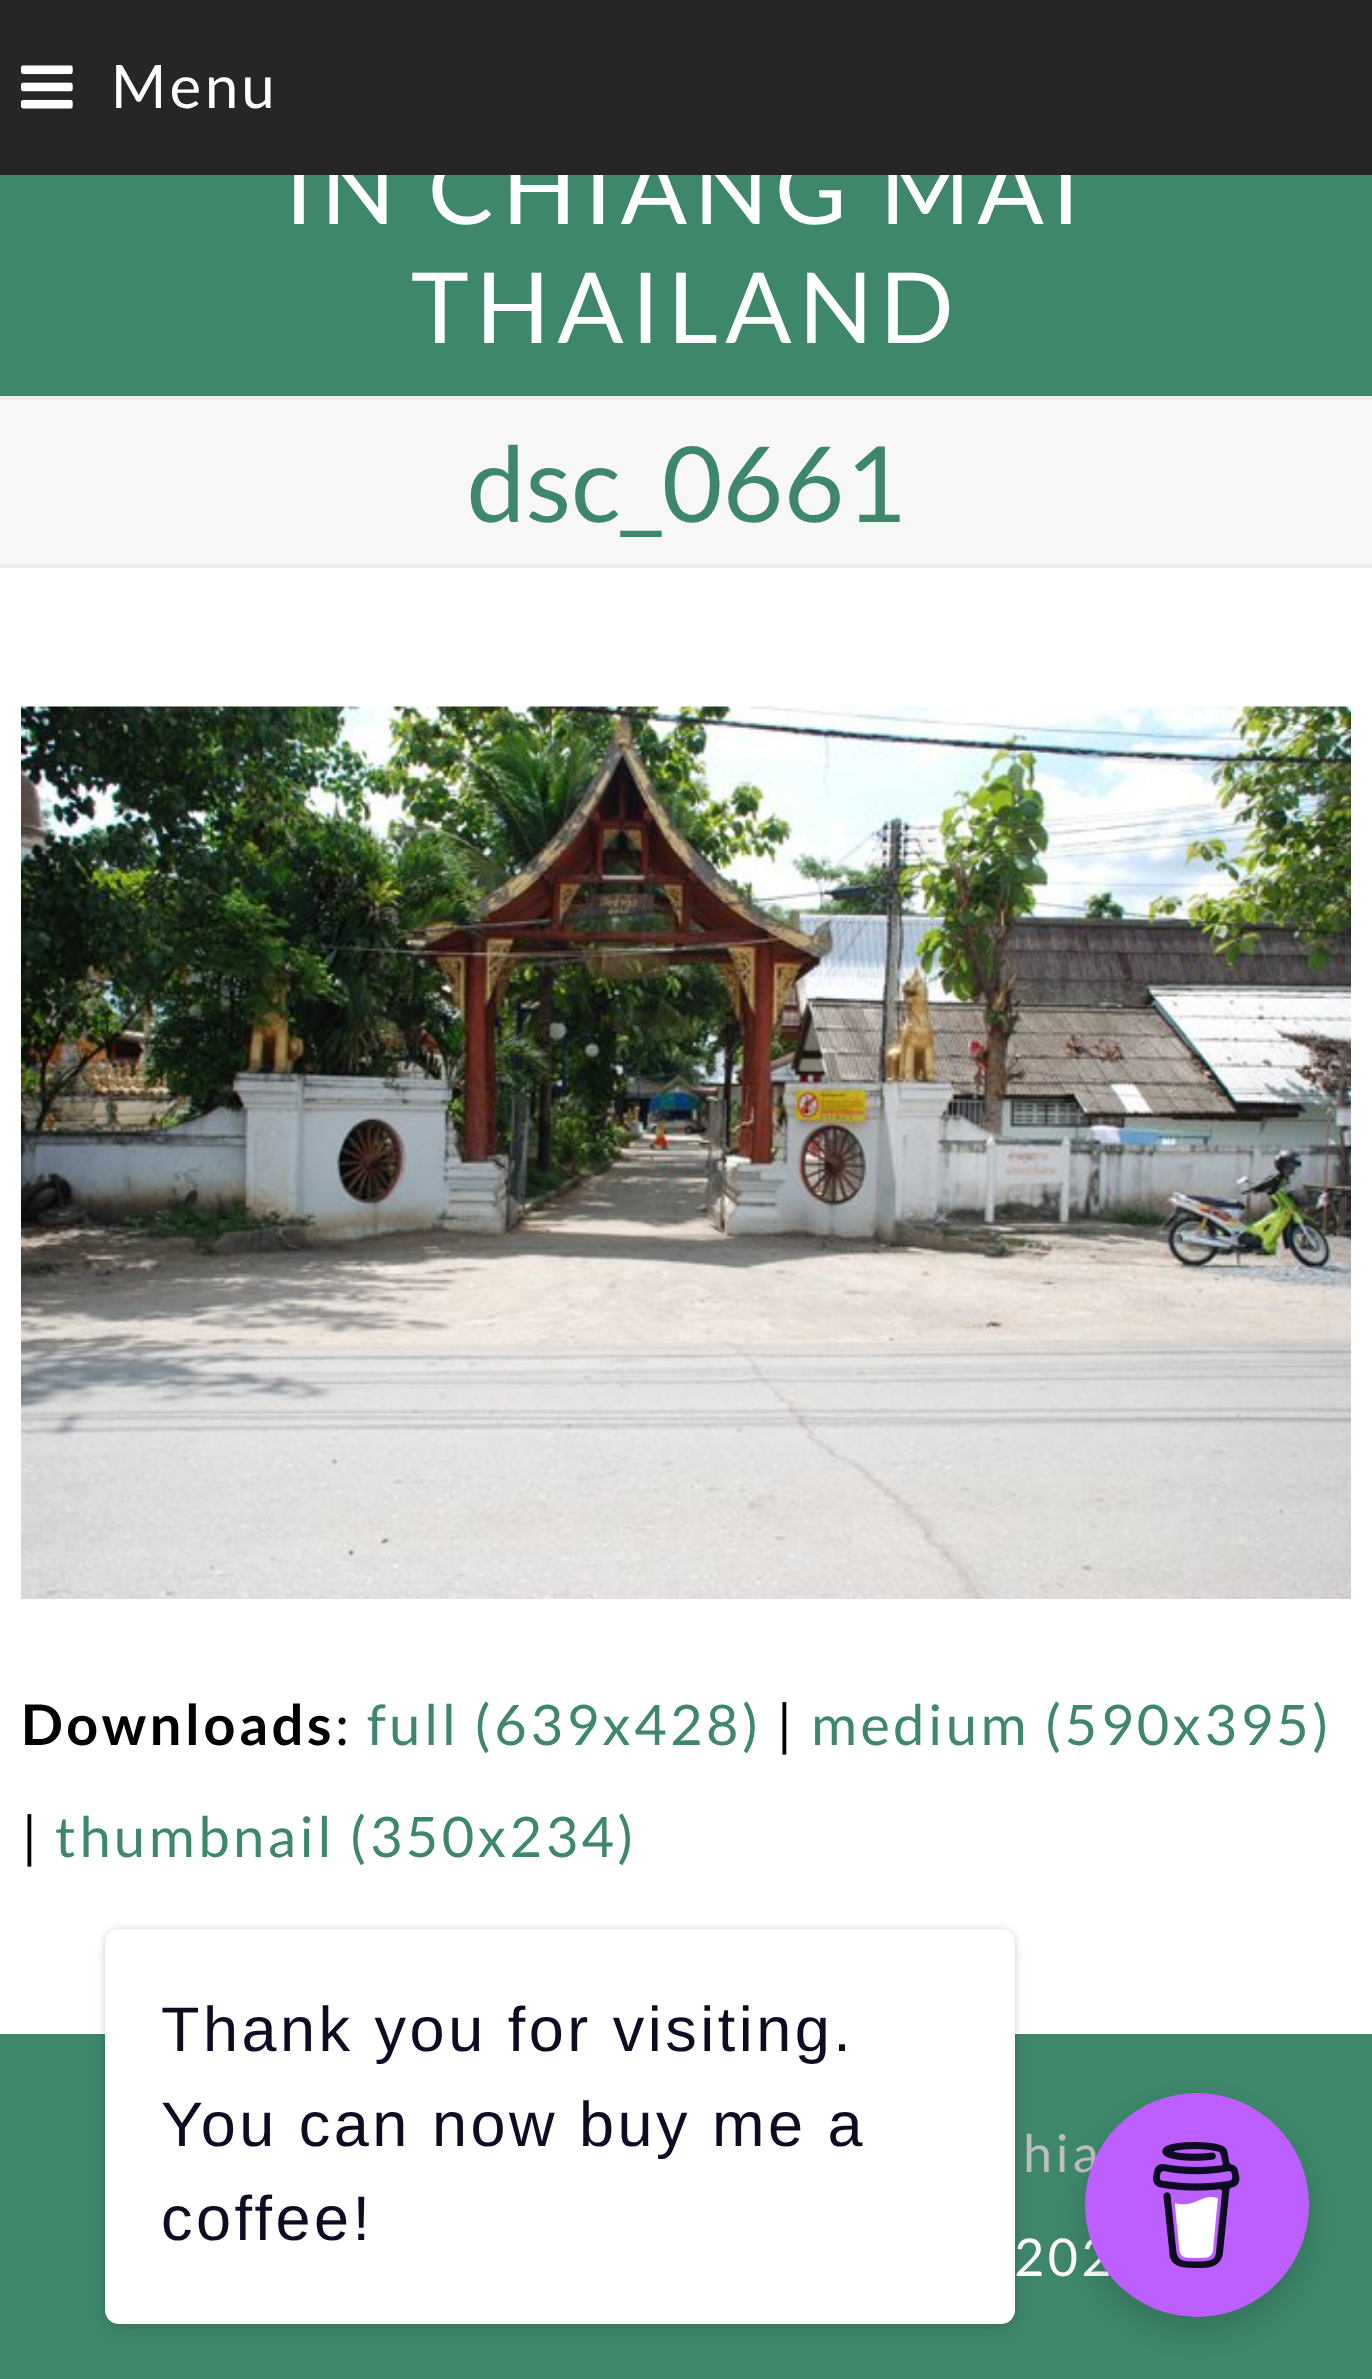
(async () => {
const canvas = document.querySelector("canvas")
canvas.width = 1372
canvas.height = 2379
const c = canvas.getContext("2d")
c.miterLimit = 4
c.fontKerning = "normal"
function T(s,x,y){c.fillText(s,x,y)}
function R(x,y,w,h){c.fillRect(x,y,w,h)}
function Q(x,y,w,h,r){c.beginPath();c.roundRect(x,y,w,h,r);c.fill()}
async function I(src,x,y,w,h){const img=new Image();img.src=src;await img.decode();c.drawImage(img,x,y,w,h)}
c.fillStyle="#fff"
R(0,0,1372,2379)
c.fillStyle="#3e876b"
R(0,175,1372,221)
c.letterSpacing="7px"
c.font="98px Lato"
c.fillStyle="#fff"
T("IN CHIANG MAI",284,224)
c.fillStyle="#262626"
R(0,0,1372,175)
await I("1.png",21,65,52,44)
c.letterSpacing="3.5px"
c.font="60px Lato"
c.fillStyle="#fff"
T("Menu",111,108)
c.letterSpacing="7px"
c.font="98px Lato"
T("THAILAND",411,343)
c.fillStyle="#f7f7f7"
R(0,400,1372,164)
c.fillStyle="#eee"
R(0,396,1372,4)
R(0,564,1372,4)
c.letterSpacing="0px"
c.font="105px Lato"
c.fillStyle="#3e876b"
T("dsc_0661",467,522)
await I("2.png",21,706,1330,893)
c.letterSpacing="3.5px"
c.font="bold 56px Lato"
c.fillStyle="#000"
T("Downloads",21,1745)
c.font="56px Lato"
T(":",335,1745)
c.fillStyle="#3e876b"
T("full (639x428)",367,1745)
c.fillStyle="#000"
T("|",776,1745)
c.fillStyle="#3e876b"
T("medium (590x395)",811,1745)
c.fillStyle="#000"
T("|",21,1857)
c.fillStyle="#3e876b"
T("thumbnail (350x234)",55,1857)
R(0,2034,1372,345)
c.font="52px Lato"
c.fillStyle="#bdbdbd"
T("hia",1023,2172)
c.fillStyle="#fff"
T("202",1014,2276)
c.fillStyle="#00000026"
c.filter="blur(3.5px)"
c.beginPath()
c.roundRect(105,1929,910,395,14)
c.fill()
c.filter="none"
c.fillStyle="#0000000d"
c.filter="blur(9px)"
c.beginPath()
c.roundRect(105,1936,910,395,14)
c.fill()
c.filter="none"
c.fillStyle="#fff"
Q(105,1929,910,395,14)
c.font="63px Liberation Sans"
c.fillStyle="#0d0c22"
T("Thank you for visiting.",161,2051)
T("You can now buy me a",161,2146)
T("coffee!",161,2240)
c.fillStyle="#00000026"
c.filter="blur(14px)"
c.beginPath()
c.roundRect(1085,2107,224,224,112)
c.fill()
c.filter="none"
c.fillStyle="#bd5fff"
c.beginPath()
c.arc(1197,2205,112,0,7)
c.fill()
await I("3.png",1152,2142,88,126)
})()
